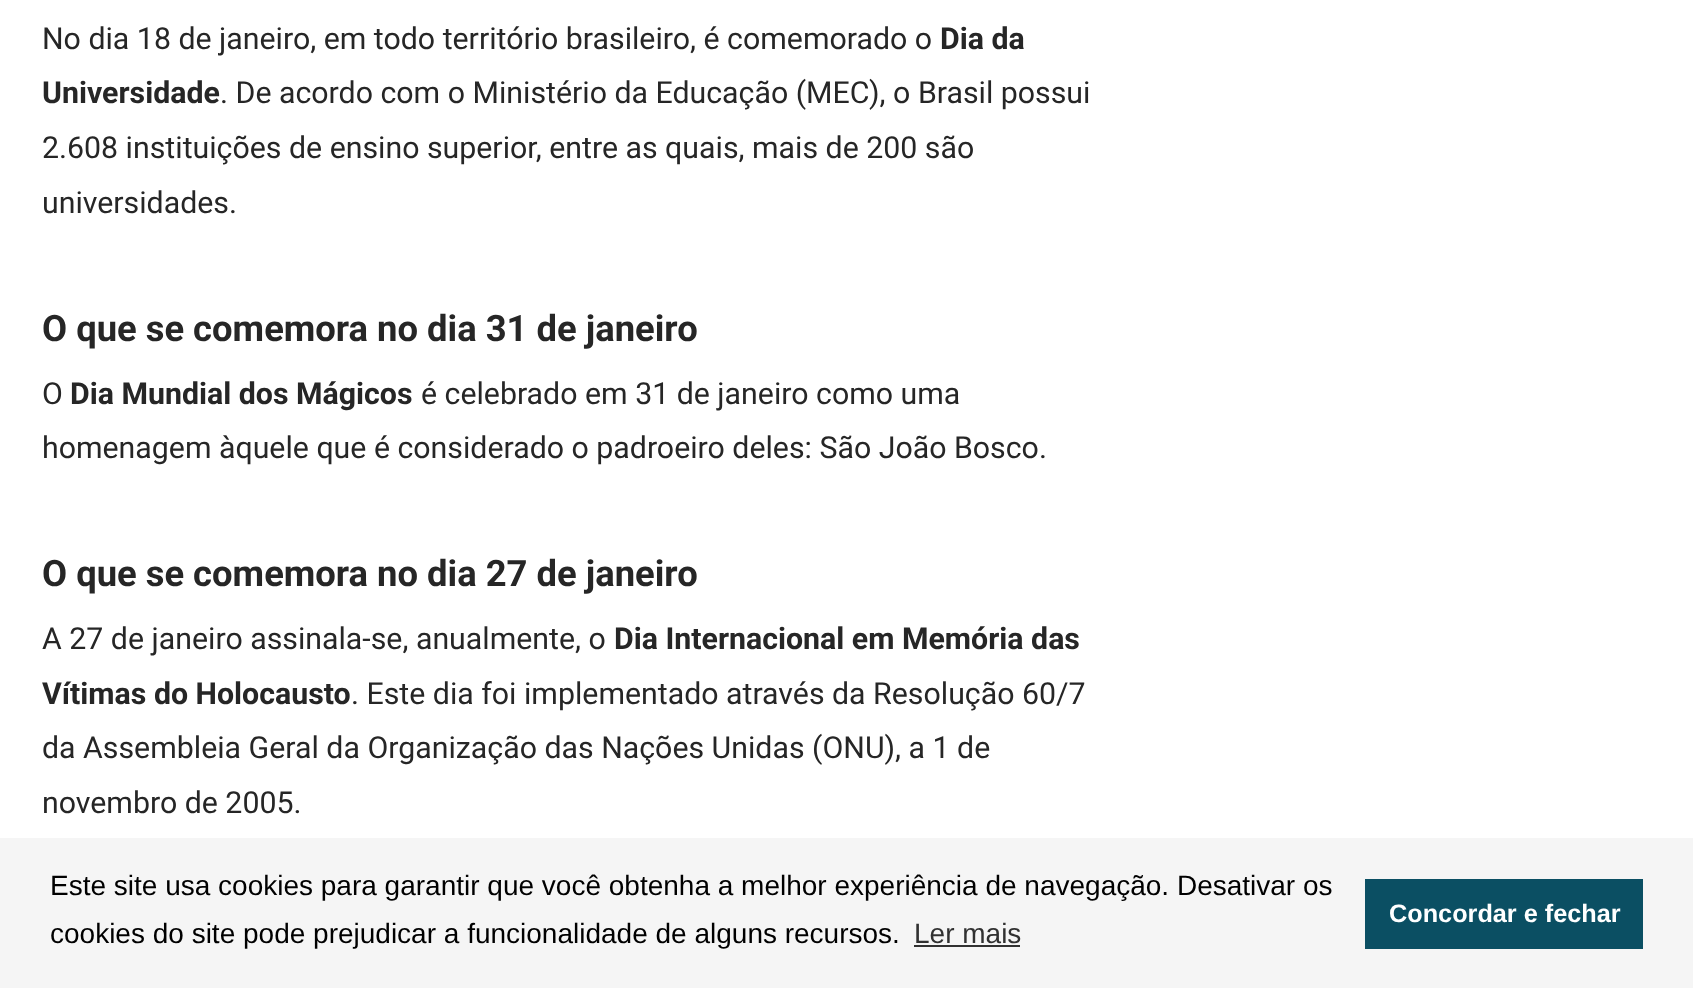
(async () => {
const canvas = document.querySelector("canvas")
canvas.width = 1693
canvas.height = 988
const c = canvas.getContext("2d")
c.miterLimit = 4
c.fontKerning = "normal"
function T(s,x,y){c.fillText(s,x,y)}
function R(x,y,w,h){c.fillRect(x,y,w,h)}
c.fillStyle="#fff"
R(0,0,1693,988)
c.font="30.3px Roboto"
c.fillStyle="#262626"
T("No dia 18 de janeiro, em todo território brasileiro, é comemorado o",42,49)
c.font="bold 30.3px Roboto"
T("Dia da",940,49)
T("Universidade",42,103)
c.font="30.3px Roboto"
T(". De acordo com o Ministério da Educação (MEC), o Brasil possui",220,103)
T("2.608 instituições de ensino superior, entre as quais, mais de 200 são",42,158)
T("universidades.",42,213)
c.font="bold 36.4px Roboto"
T("O que se comemora no dia 31 de janeiro",42,341)
c.font="30.3px Roboto"
T("O",42,404)
c.font="bold 30.3px Roboto"
T("Dia Mundial dos Mágicos",70,404)
c.font="30.3px Roboto"
T("é celebrado em 31 de janeiro como uma",421,404)
T("homenagem àquele que é considerado o padroeiro deles: São João Bosco.",42,458)
c.font="bold 36.4px Roboto"
T("O que se comemora no dia 27 de janeiro",42,586)
c.font="30.3px Roboto"
T("A 27 de janeiro assinala-se, anualmente, o",42,649)
c.font="bold 30.3px Roboto"
T("Dia Internacional em Memória das",614,649)
T("Vítimas do Holocausto",42,704)
c.font="30.3px Roboto"
T(". Este dia foi implementado através da Resolução 60/7",351,704)
T("da Assembleia Geral da Organização das Nações Unidas (ONU), a 1 de",42,758)
T("novembro de 2005.",42,813)
c.fillStyle="#f5f5f5"
R(0,838,1693,150)
c.font="28px Liberation Sans"
c.fillStyle="#000"
T("Este site usa cookies para garantir que você obtenha a melhor experiência de navegação. Desativar os",50,895)
T("cookies do site pode prejudicar a funcionalidade de alguns recursos.",50,943)
c.fillStyle="#313131"
T("Ler mais",914,943)
R(914,945,106,2)
c.fillStyle="#0b4f63"
R(1365,879,278,70)
c.font="bold 25.25px Liberation Sans"
c.fillStyle="#fff"
T("Concordar e fechar",1389,922)
})()
